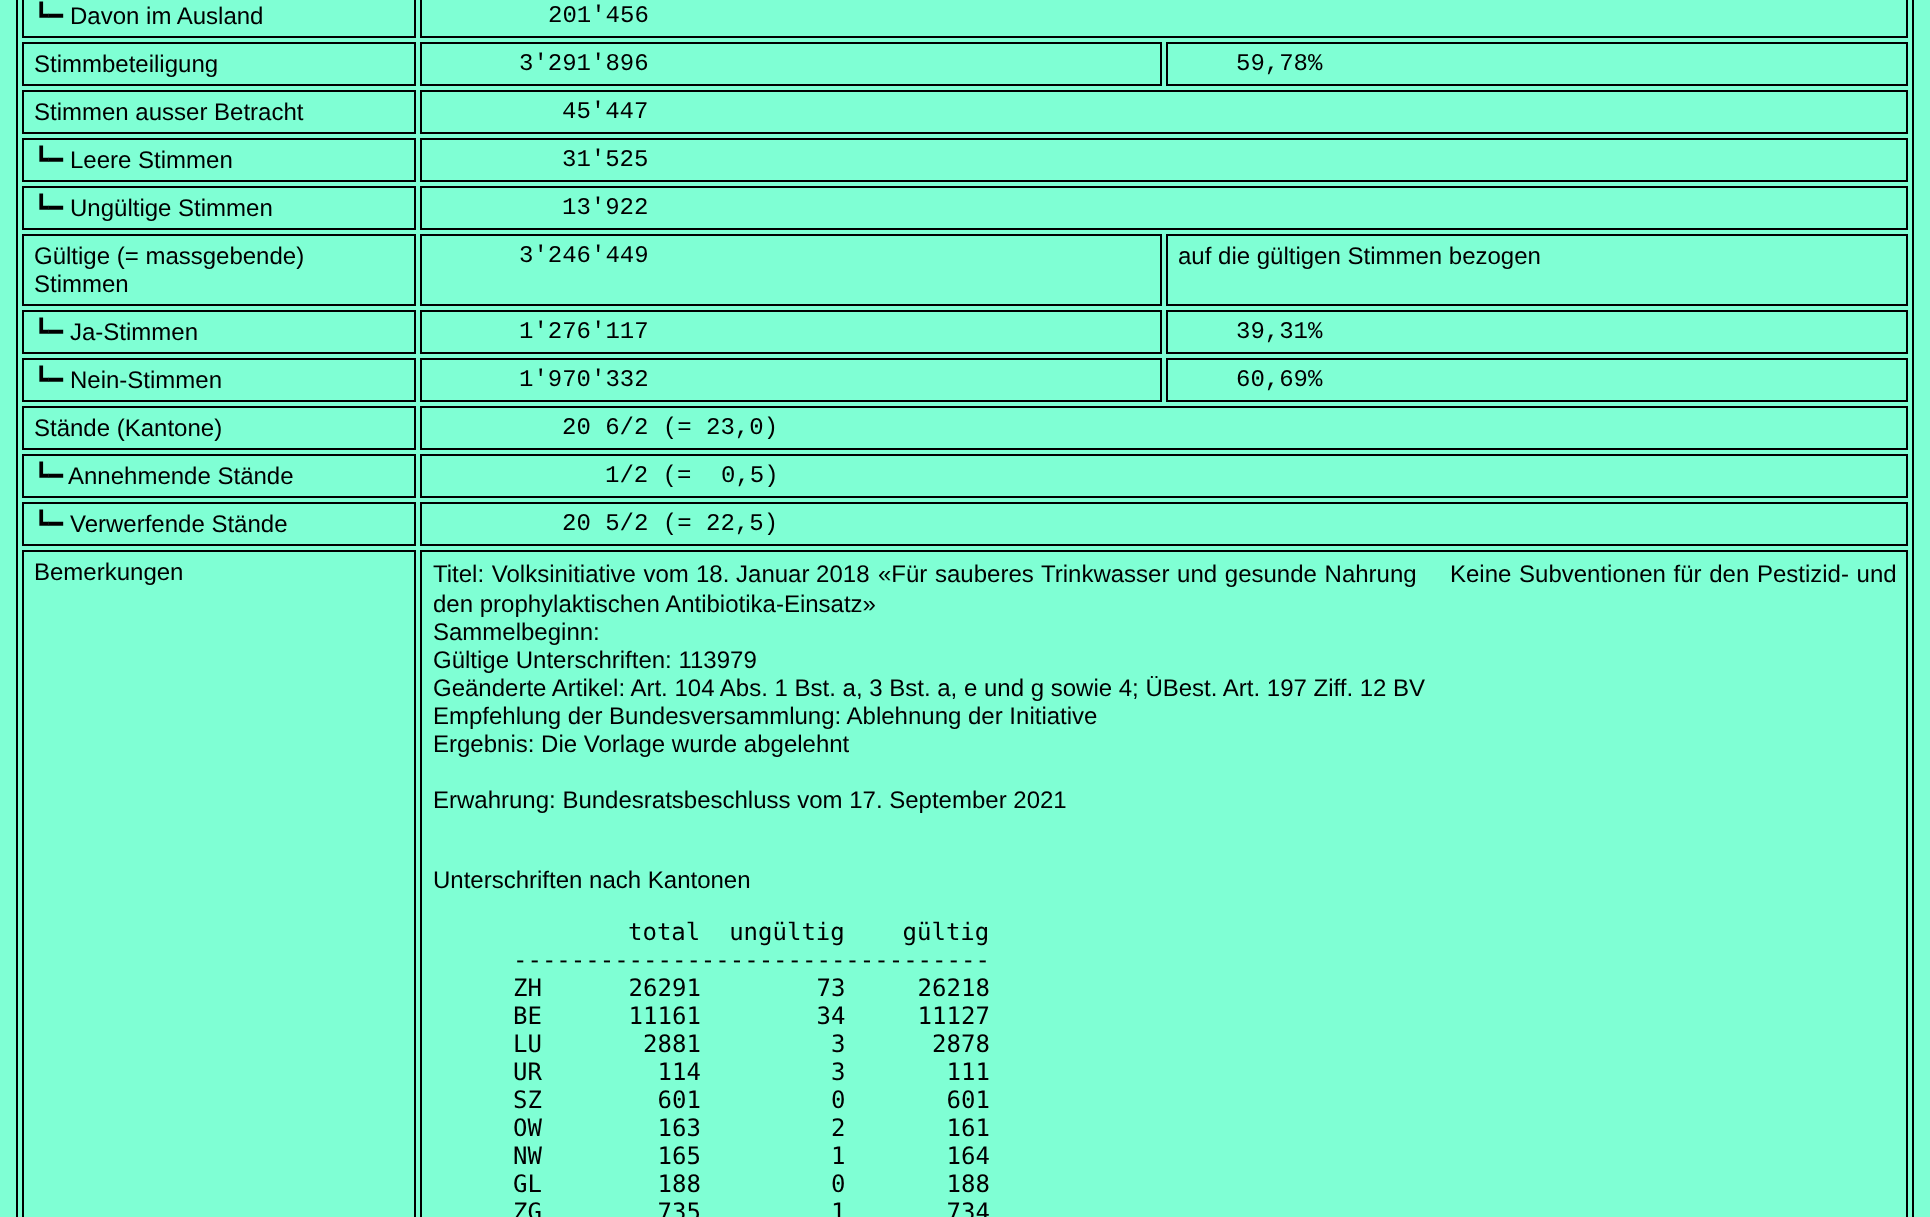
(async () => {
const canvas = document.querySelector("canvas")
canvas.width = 1930
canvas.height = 1217
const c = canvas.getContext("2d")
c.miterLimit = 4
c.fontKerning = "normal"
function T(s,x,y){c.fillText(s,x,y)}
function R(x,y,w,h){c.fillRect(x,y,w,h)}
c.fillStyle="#7fffd4"
R(0,0,1930,1217)
c.strokeStyle="#000"
c.lineWidth=2
c.strokeRect(17,-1,1896,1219)
c.strokeRect(23,-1,392,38)
c.font="24px DejaVu Sans"
c.fillStyle="#000"
T("┗━",34,24)
c.font="24px Liberation Sans"
T("Davon im Ausland",70,24)
c.strokeRect(421,-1,1486,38)
c.font="24px Liberation Mono"
T("201'456",548,22)
c.strokeRect(23,43,392,42)
c.font="24px Liberation Sans"
T("Stimmbeteiligung",34,72)
c.strokeRect(421,43,740,42)
c.font="24px Liberation Mono"
T("3'291'896",519,70)
c.strokeRect(1167,43,740,42)
T("59,78%",1236,70)
c.strokeRect(23,91,392,42)
c.font="24px Liberation Sans"
T("Stimmen ausser Betracht",34,120)
c.strokeRect(421,91,1486,42)
c.font="24px Liberation Mono"
T("45'447",562,118)
c.strokeRect(23,139,392,42)
c.font="24px DejaVu Sans"
T("┗━",34,168)
c.font="24px Liberation Sans"
T("Leere Stimmen",70,168)
c.strokeRect(421,139,1486,42)
c.font="24px Liberation Mono"
T("31'525",562,166)
c.strokeRect(23,187,392,42)
c.font="24px DejaVu Sans"
T("┗━",34,216)
c.font="24px Liberation Sans"
T("Ungültige Stimmen",70,216)
c.strokeRect(421,187,1486,42)
c.font="24px Liberation Mono"
T("13'922",562,214)
c.strokeRect(23,235,392,70)
c.font="24px Liberation Sans"
T("Gültige (= massgebende)",34,264)
T("Stimmen",34,292)
c.strokeRect(421,235,740,70)
c.font="24px Liberation Mono"
T("3'246'449",519,262)
c.strokeRect(1167,235,740,70)
c.font="24px Liberation Sans"
T("auf die gültigen Stimmen bezogen",1178,264)
c.strokeRect(23,311,392,42)
c.font="24px DejaVu Sans"
T("┗━",34,340)
c.font="24px Liberation Sans"
T("Ja-Stimmen",70,340)
c.strokeRect(421,311,740,42)
c.font="24px Liberation Mono"
T("1'276'117",519,338)
c.strokeRect(1167,311,740,42)
T("39,31%",1236,338)
c.strokeRect(23,359,392,42)
c.font="24px DejaVu Sans"
T("┗━",34,388)
c.font="24px Liberation Sans"
T("Nein-Stimmen",70,388)
c.strokeRect(421,359,740,42)
c.font="24px Liberation Mono"
T("1'970'332",519,386)
c.strokeRect(1167,359,740,42)
T("60,69%",1236,386)
c.strokeRect(23,407,392,42)
c.font="24px Liberation Sans"
T("Stände (Kantone)",34,436)
c.strokeRect(421,407,1486,42)
c.font="24px Liberation Mono"
T("20 6/2 (= 23,0)",562,434)
c.strokeRect(23,455,392,42)
c.font="24px DejaVu Sans"
T("┗━",34,484)
c.font="24px Liberation Sans"
T("Annehmende Stände",68,484)
c.strokeRect(421,455,1486,42)
c.font="24px Liberation Mono"
T("1/2 (=",605,482)
T("0,5)",721,482)
c.strokeRect(23,503,392,42)
c.font="24px DejaVu Sans"
T("┗━",34,532)
c.font="24px Liberation Sans"
T("Verwerfende Stände",70,532)
c.strokeRect(421,503,1486,42)
c.font="24px Liberation Mono"
T("20 5/2 (= 22,5)",562,530)
c.strokeRect(23,551,392,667)
c.font="24px Liberation Sans"
T("Bemerkungen",34,580)
c.strokeRect(421,551,1486,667)
c.wordSpacing="1px"
T("Titel: Volksinitiative vom",433,582)
c.wordSpacing="0px"
T("18. Januar 2018",696,582)
c.wordSpacing="1px"
T("«Für sauberes Trinkwasser und gesunde Nahrung",878,582)
T("Keine Subventionen für den Pestizid- und",1450,582)
c.wordSpacing="0px"
T("den prophylaktischen Antibiotika-Einsatz»",433,612)
T("Sammelbeginn:",433,640)
T("Gültige Unterschriften: 113979",433,668)
T("Geänderte Artikel: Art. 104 Abs. 1 Bst. a, 3 Bst. a, e und g sowie 4; ÜBest. Art. 197 Ziff. 12 BV",433,696)
T("Empfehlung der Bundesversammlung: Ablehnung der Initiative",433,724)
T("Ergebnis: Die Vorlage wurde abgelehnt",433,752)
T("Erwahrung: Bundesratsbeschluss vom 17. September 2021",433,808)
T("Unterschriften nach Kantonen",433,888)
c.font="24px DejaVu Sans Mono"
T("total  ungültig    gültig",628,940)
T("---------------------------------",513,968)
T("ZH      26291        73     26218",513,996)
T("BE      11161        34     11127",513,1024)
T("LU       2881         3      2878",513,1052)
T("UR        114         3       111",513,1080)
T("SZ        601         0       601",513,1108)
T("OW        163         2       161",513,1136)
T("NW        165         1       164",513,1164)
T("GL        188         0       188",513,1192)
T("ZG        735         1       734",513,1220)
})()
